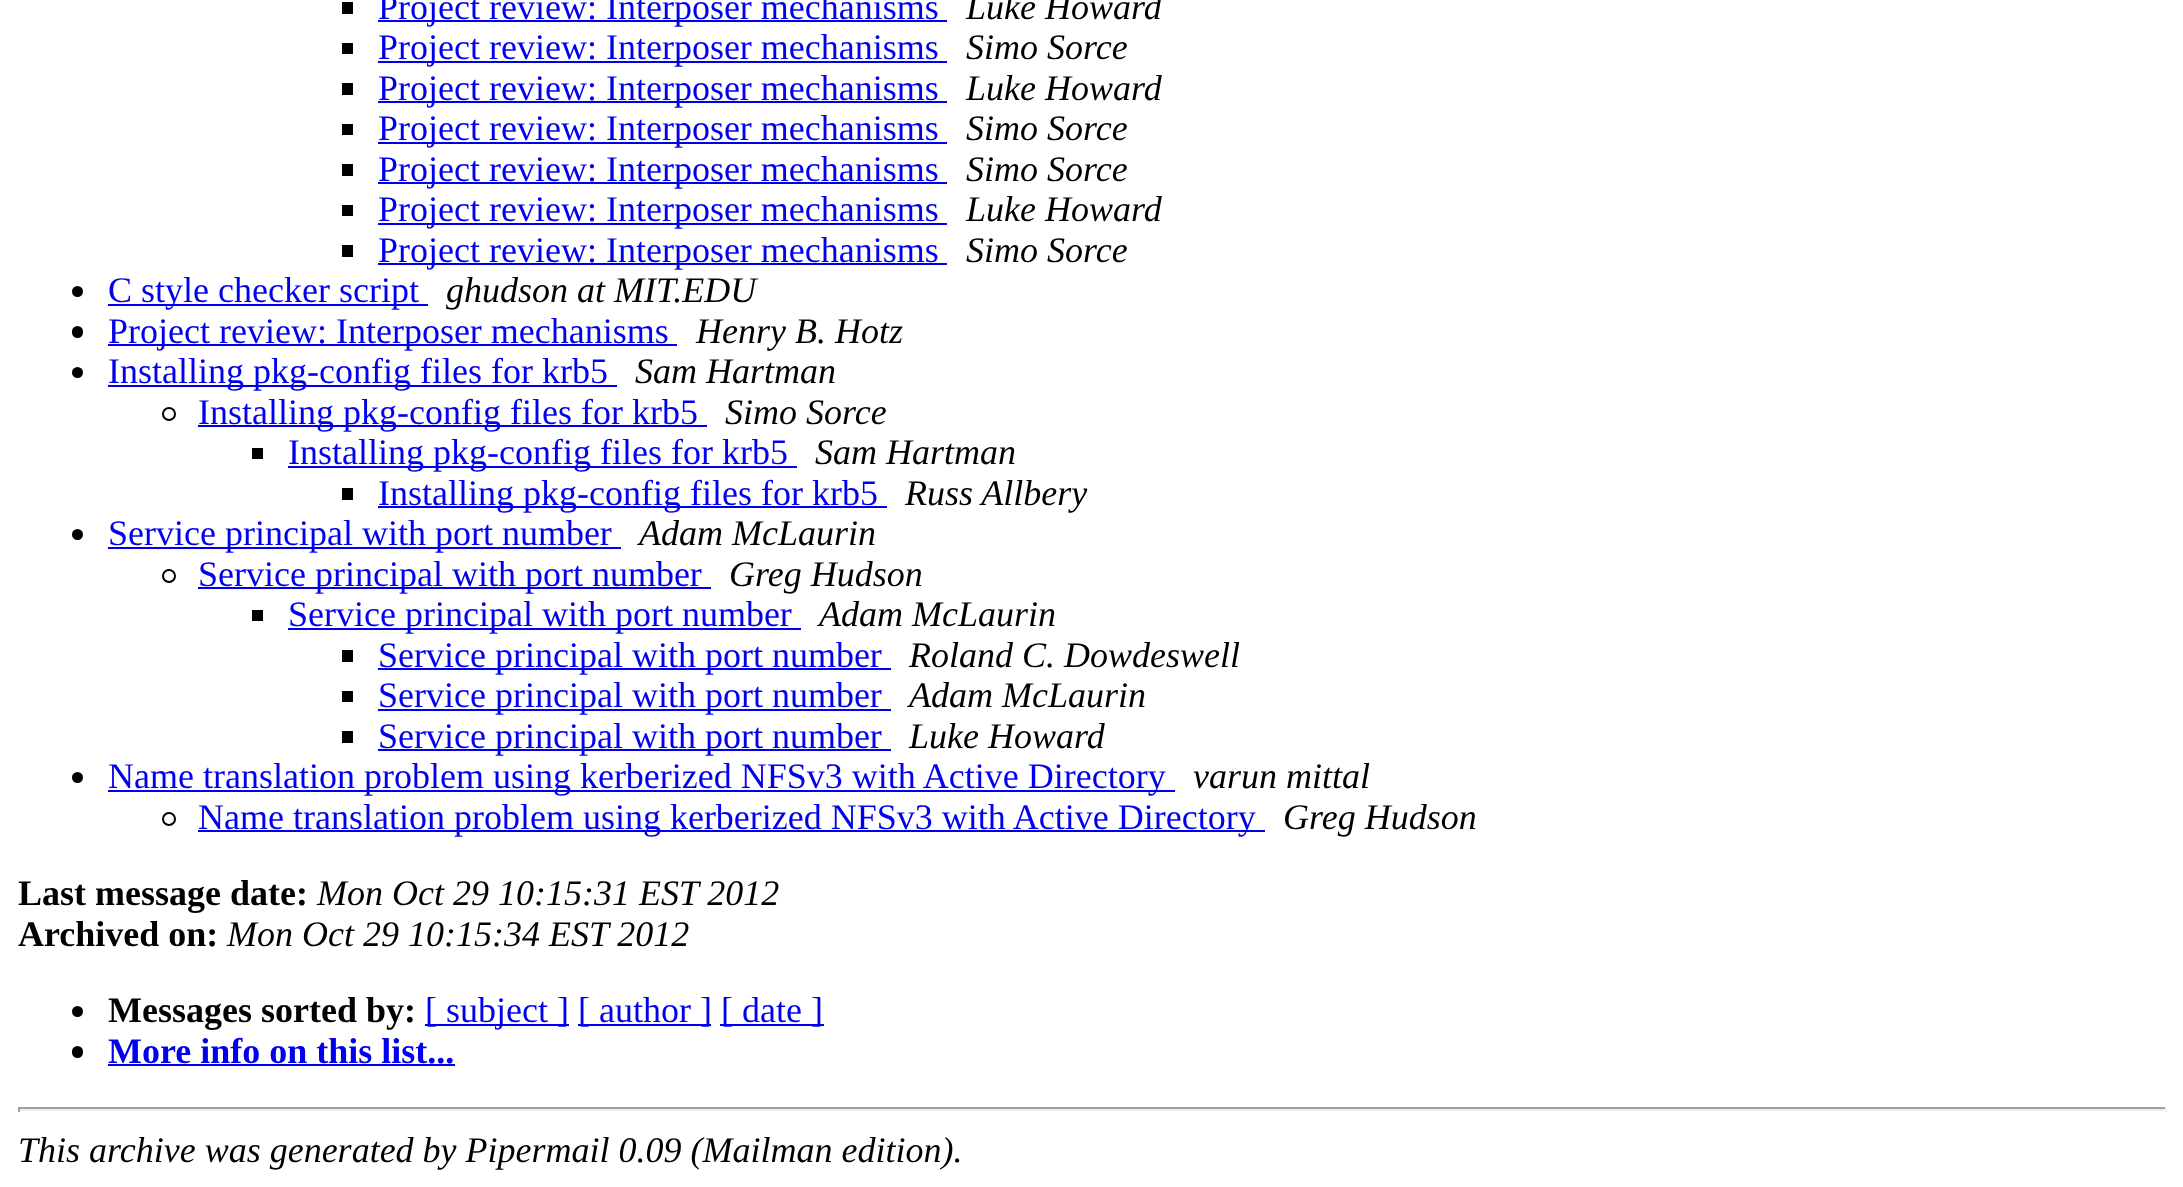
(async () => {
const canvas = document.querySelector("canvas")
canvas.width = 2183
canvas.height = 1187
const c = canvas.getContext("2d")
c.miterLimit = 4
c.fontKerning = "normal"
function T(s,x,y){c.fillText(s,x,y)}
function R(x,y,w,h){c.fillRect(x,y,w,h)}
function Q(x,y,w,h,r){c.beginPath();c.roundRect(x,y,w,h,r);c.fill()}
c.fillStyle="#fff"
R(0,0,2183,1187)
c.fillStyle="#000"
R(342,2,11,12)
c.fillStyle="#00e"
R(378,20,569,2)
c.font="36px Liberation Serif"
T("Project review: Interposer mechanisms",378,19)
c.font="italic 36px Liberation Serif"
c.fillStyle="#000"
T("Luke Howard",966,19)
R(342,43,11,11)
c.fillStyle="#00e"
R(378,61,569,2)
c.font="36px Liberation Serif"
T("Project review: Interposer mechanisms",378,59)
c.font="italic 36px Liberation Serif"
c.fillStyle="#000"
T("Simo Sorce",966,59)
R(342,83,11,12)
c.fillStyle="#00e"
R(378,101,569,2)
c.font="36px Liberation Serif"
T("Project review: Interposer mechanisms",378,100)
c.font="italic 36px Liberation Serif"
c.fillStyle="#000"
T("Luke Howard",966,100)
R(342,124,11,11)
c.fillStyle="#00e"
R(378,142,569,2)
c.font="36px Liberation Serif"
T("Project review: Interposer mechanisms",378,140)
c.font="italic 36px Liberation Serif"
c.fillStyle="#000"
T("Simo Sorce",966,140)
R(342,164,11,12)
c.fillStyle="#00e"
R(378,182,569,2)
c.font="36px Liberation Serif"
T("Project review: Interposer mechanisms",378,181)
c.font="italic 36px Liberation Serif"
c.fillStyle="#000"
T("Simo Sorce",966,181)
R(342,205,11,11)
c.fillStyle="#00e"
R(378,223,569,2)
c.font="36px Liberation Serif"
T("Project review: Interposer mechanisms",378,221)
c.font="italic 36px Liberation Serif"
c.fillStyle="#000"
T("Luke Howard",966,221)
R(342,245,11,12)
c.fillStyle="#00e"
R(378,263,569,2)
c.font="36px Liberation Serif"
T("Project review: Interposer mechanisms",378,262)
c.font="italic 36px Liberation Serif"
c.fillStyle="#000"
T("Simo Sorce",966,262)
c.beginPath()
c.arc(77.5,291.5,5.5,0,7)
c.fill()
c.fillStyle="#00e"
R(108,304,320,2)
c.font="36px Liberation Serif"
T("C style checker script",108,302)
c.font="italic 36px Liberation Serif"
c.fillStyle="#000"
T("ghudson at MIT.EDU",446,302)
Q(72,326,11,12,5.5)
c.fillStyle="#00e"
R(108,344,569,2)
c.font="36px Liberation Serif"
T("Project review: Interposer mechanisms",108,343)
c.font="italic 36px Liberation Serif"
c.fillStyle="#000"
T("Henry B. Hotz",696,343)
c.beginPath()
c.arc(77.5,372.5,5.5,0,7)
c.fill()
c.fillStyle="#00e"
R(108,385,509,2)
c.font="36px Liberation Serif"
T("Installing pkg-config files for krb5",108,383)
c.font="italic 36px Liberation Serif"
c.fillStyle="#000"
T("Sam Hartman",635,383)
c.beginPath()
c.arc(169,414,6,0,7)
c.strokeStyle="#000"
c.lineWidth=2
c.stroke()
c.fillStyle="#00e"
R(198,425,509,2)
c.font="36px Liberation Serif"
T("Installing pkg-config files for krb5",198,424)
c.font="italic 36px Liberation Serif"
c.fillStyle="#000"
T("Simo Sorce",725,424)
R(252,448,11,11)
c.fillStyle="#00e"
R(288,466,509,2)
c.font="36px Liberation Serif"
T("Installing pkg-config files for krb5",288,464)
c.font="italic 36px Liberation Serif"
c.fillStyle="#000"
T("Sam Hartman",815,464)
R(342,488,11,12)
c.fillStyle="#00e"
R(378,506,509,2)
c.font="36px Liberation Serif"
T("Installing pkg-config files for krb5",378,505)
c.font="italic 36px Liberation Serif"
c.fillStyle="#000"
T("Russ Allbery",905,505)
c.beginPath()
c.arc(77.5,534.5,5.5,0,7)
c.fill()
c.fillStyle="#00e"
R(108,547,513,2)
c.font="36px Liberation Serif"
T("Service principal with port number",108,545)
c.font="italic 36px Liberation Serif"
c.fillStyle="#000"
T("Adam McLaurin",639,545)
c.beginPath()
c.arc(169,576,6,0,7)
c.stroke()
c.fillStyle="#00e"
R(198,587,513,2)
c.font="36px Liberation Serif"
T("Service principal with port number",198,586)
c.font="italic 36px Liberation Serif"
c.fillStyle="#000"
T("Greg Hudson",729,586)
R(252,610,11,11)
c.fillStyle="#00e"
R(288,628,513,2)
c.font="36px Liberation Serif"
T("Service principal with port number",288,626)
c.font="italic 36px Liberation Serif"
c.fillStyle="#000"
T("Adam McLaurin",819,626)
R(342,650,11,12)
c.fillStyle="#00e"
R(378,668,513,2)
c.font="36px Liberation Serif"
T("Service principal with port number",378,667)
c.font="italic 36px Liberation Serif"
c.fillStyle="#000"
T("Roland C. Dowdeswell",909,667)
R(342,691,11,11)
c.fillStyle="#00e"
R(378,709,513,2)
c.font="36px Liberation Serif"
T("Service principal with port number",378,707)
c.font="italic 36px Liberation Serif"
c.fillStyle="#000"
T("Adam McLaurin",909,707)
R(342,731,11,12)
c.fillStyle="#00e"
R(378,749,513,2)
c.font="36px Liberation Serif"
T("Service principal with port number",378,748)
c.font="italic 36px Liberation Serif"
c.fillStyle="#000"
T("Luke Howard",909,748)
c.beginPath()
c.arc(77.5,777.5,5.5,0,7)
c.fill()
c.fillStyle="#00e"
R(108,790,1067,2)
c.font="36px Liberation Serif"
T("Name translation problem using kerberized NFSv3 with Active Directory",108,788)
c.font="italic 36px Liberation Serif"
c.fillStyle="#000"
T("varun mittal",1193,788)
c.beginPath()
c.arc(169,819,6,0,7)
c.stroke()
c.fillStyle="#00e"
R(198,830,1067,2)
c.font="36px Liberation Serif"
T("Name translation problem using kerberized NFSv3 with Active Directory",198,829)
c.font="italic 36px Liberation Serif"
c.fillStyle="#000"
T("Greg Hudson",1283,829)
c.font="bold 36px Liberation Serif"
T("Last message date:",18,905)
c.font="italic 36px Liberation Serif"
T("Mon Oct 29 10:15:31 EST 2012",317,905)
c.font="bold 36px Liberation Serif"
T("Archived on:",18,946)
c.font="italic 36px Liberation Serif"
T("Mon Oct 29 10:15:34 EST 2012",227,946)
c.beginPath()
c.arc(77.5,1011.5,5.5,0,7)
c.fill()
c.font="bold 36px Liberation Serif"
T("Messages sorted by:",108,1022)
c.fillStyle="#00e"
R(425,1024,144,2)
c.font="36px Liberation Serif"
T("[ subject ]",425,1022)
R(578,1024,133,2)
T("[ author ]",578,1022)
R(720,1024,104,2)
T("[ date ]",721,1022)
c.fillStyle="#000"
Q(72,1046,11,12,5.5)
c.font="bold 36px Liberation Serif"
c.fillStyle="#00e"
T("More info on this list...",108,1063)
R(108,1064,347,2)
c.fillStyle="#9f9f9f"
R(18,1107,2149,2)
c.fillStyle="#eee"
R(2165,1107,2,5)
R(18,1109,2149,2)
c.fillStyle="#9f9f9f"
R(18,1107,2,5)
c.font="italic 36px Liberation Serif"
c.fillStyle="#000"
T("This archive was generated by Pipermail 0.09 (Mailman edition).",18,1162)
})()
